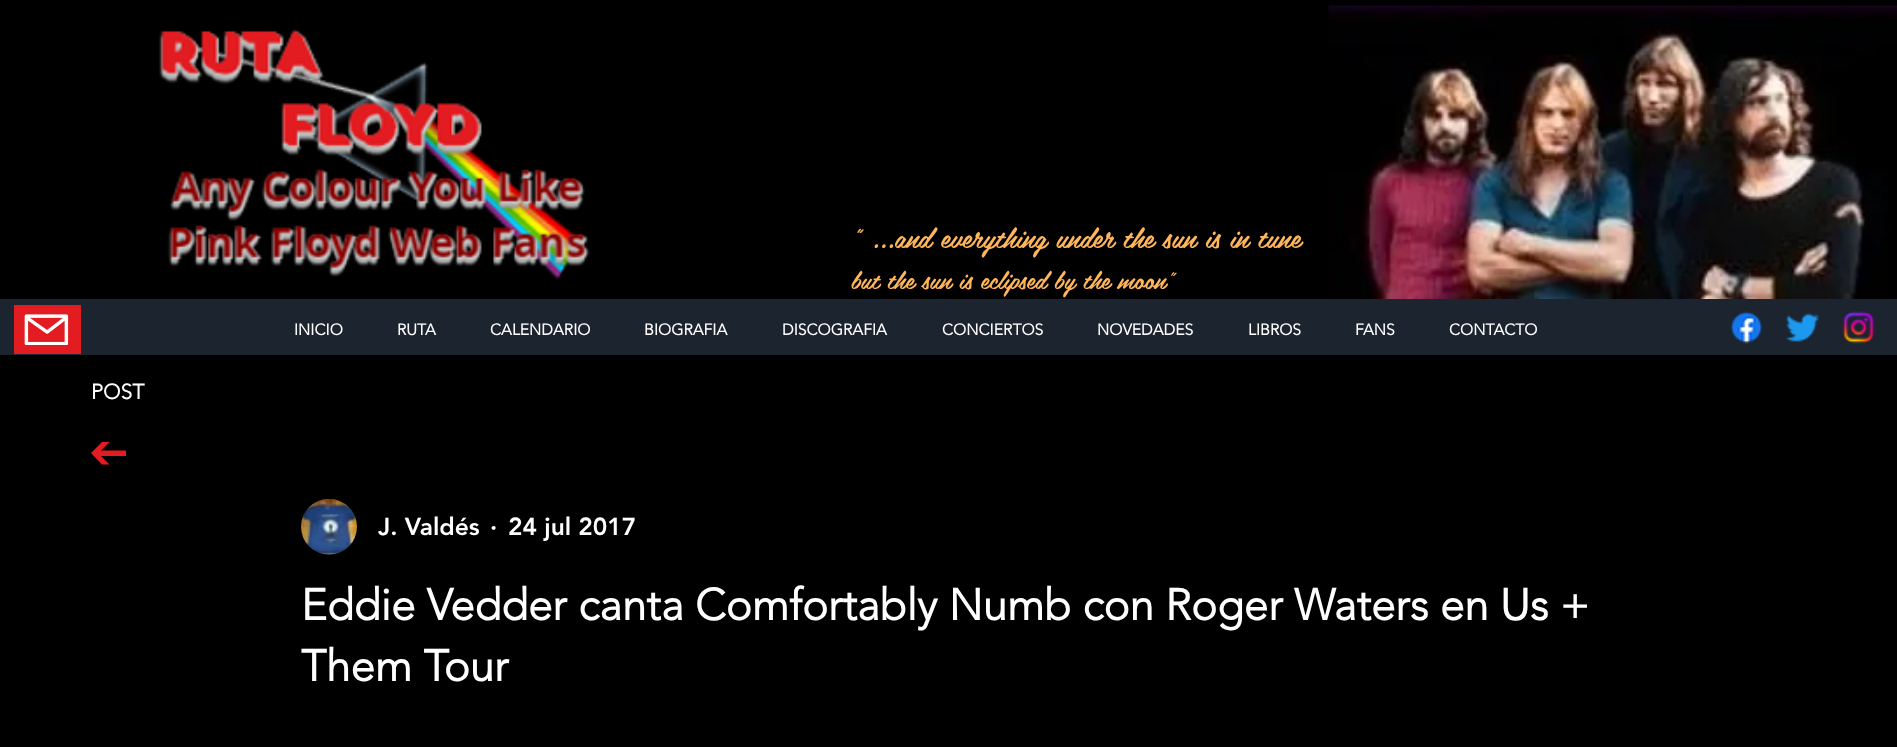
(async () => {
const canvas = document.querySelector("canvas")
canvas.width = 1897
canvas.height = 747
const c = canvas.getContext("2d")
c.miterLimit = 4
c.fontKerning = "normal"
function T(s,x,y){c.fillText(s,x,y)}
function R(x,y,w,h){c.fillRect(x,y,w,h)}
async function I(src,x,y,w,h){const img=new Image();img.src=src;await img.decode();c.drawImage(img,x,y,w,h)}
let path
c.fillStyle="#000"
R(0,0,1897,747)
await I("1.png",159,29,431,251)
c.font="28px 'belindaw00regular'"
c.fillStyle="#ffb559"
T("\" ...and everything under the sun is in tune",851,248)
c.font="24.5px 'belindaw00regular'"
T("but the sun is eclipsed by the moon\"",851,289)
await I("2.png",1328,5,569,294)
c.fillStyle="#1c242f"
R(0,299,1897,56)
c.fillStyle="#e21c21"
R(14,305,67,49)
await I("3.png",24,314,45,31)
c.font="bold 15.75px 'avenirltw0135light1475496'"
c.fillStyle="#fff"
T("INICIO",294,335)
T("RUTA",397,335)
T("CALENDARIO",490,335)
T("BIOGRAFIA",644,335)
T("DISCOGRAFIA",782,335)
T("CONCIERTOS",942,335)
T("NOVEDADES",1097,335)
T("LIBROS",1248,335)
T("FANS",1355,335)
T("CONTACTO",1449,335)
await I("4.png",1730,311,33,33)
await I("5.png",1786,313,34,29)
await I("6.png",1842,311,33,33)
c.font="bold 21px 'avenirltw0135light1475496'"
T("POST",91,399)
c.fillStyle="#e21c21"
path = new Path2D("M102 442l-11 11l11 11.5h7.5l-8.5-8.5h25v-5.5h-25l8.5-8.5z")
c.fill(path)
await I("7.png",301,498,56,57)
c.font="900 24.5px 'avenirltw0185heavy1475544'"
c.fillStyle="#fff"
T("J. Valdés",378,535)
T("·",490,535)
T("24 jul 2017",508,535)
c.font="bold 43.75px 'avenirltw0135light1475496'"
T("Eddie Vedder canta Comfortably Numb con Roger Waters en Us +",301,620)
T("Them Tour",301,681)
})()
